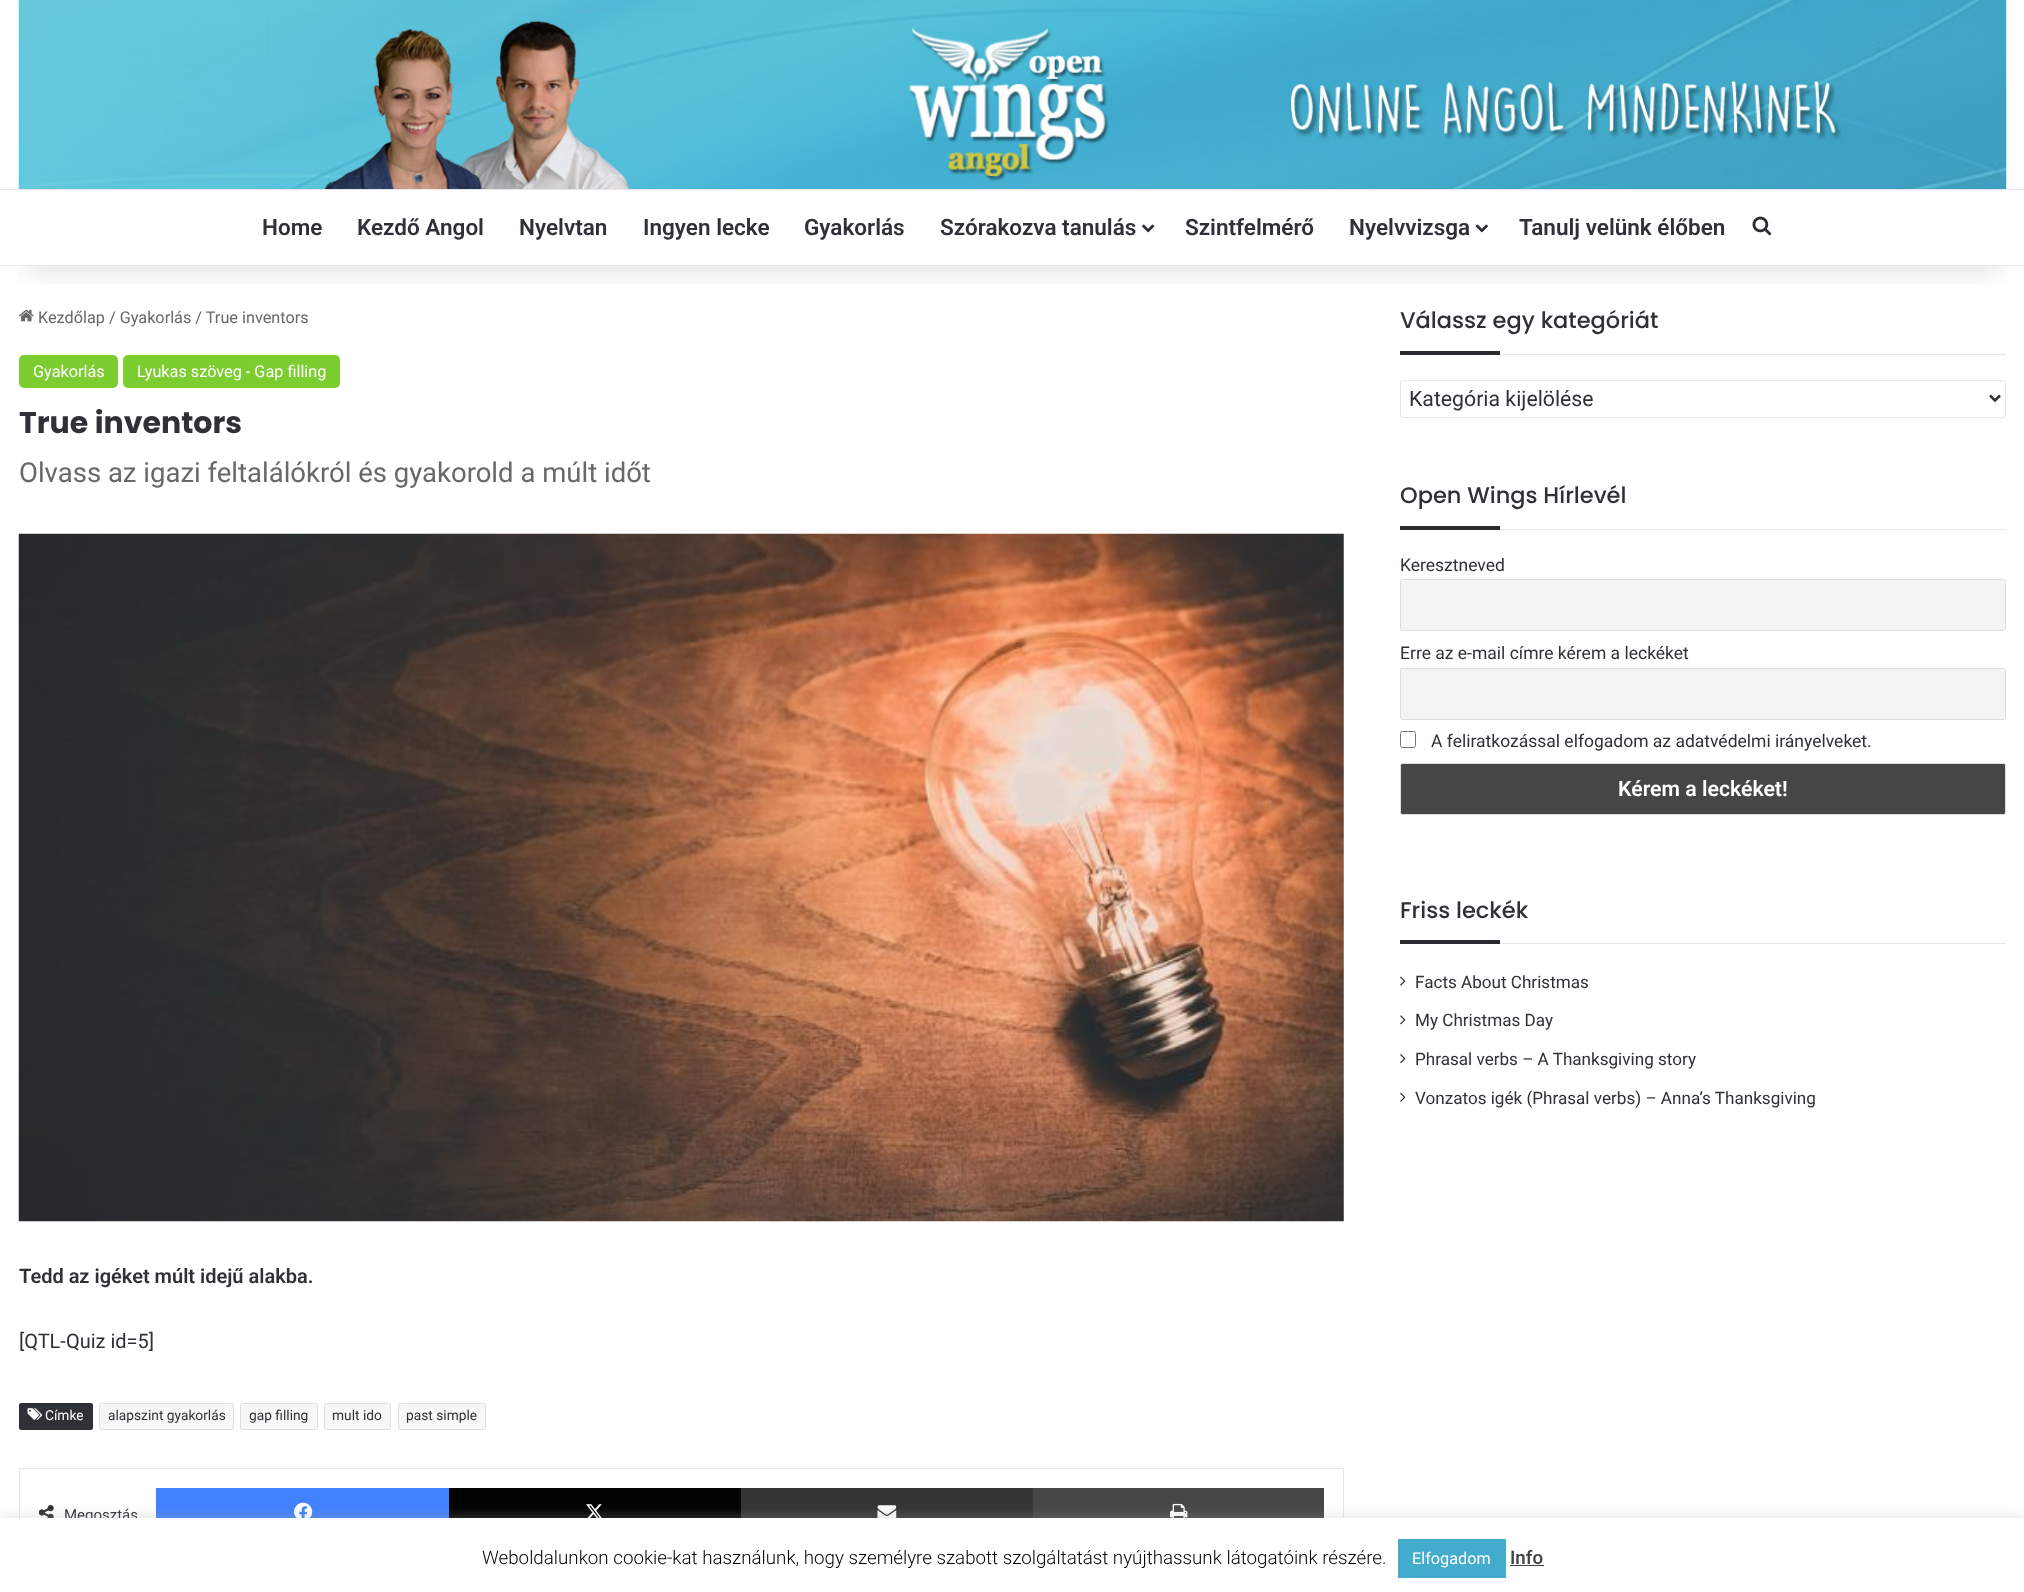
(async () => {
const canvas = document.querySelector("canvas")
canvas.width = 2024
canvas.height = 1592
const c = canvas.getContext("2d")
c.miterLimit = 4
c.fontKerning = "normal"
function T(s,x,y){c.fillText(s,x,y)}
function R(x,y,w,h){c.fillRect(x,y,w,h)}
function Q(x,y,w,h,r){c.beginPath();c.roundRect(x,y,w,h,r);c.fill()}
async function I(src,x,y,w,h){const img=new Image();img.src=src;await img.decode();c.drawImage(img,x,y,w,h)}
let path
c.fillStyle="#fff"
R(0,0,2024,1592)
await I("5.png",19,309,15,13)
c.save()
c.beginPath()
c.rect(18,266,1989,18)
c.clip()
c.fillStyle="#0000001a"
c.filter="blur(12.5px)"
c.beginPath()
c.rect(25,56,1975,217)
c.fill()
c.filter="none"
c.restore()
await I("1.png",18,0,1989,189)
c.fillStyle="#e6e6e6"
R(0,189,2024,1)
R(0,265,2024,1)
c.font="600 22.5px Roboto"
c.fillStyle="#2e3136"
T("Home",262,235)
T("Kezdő Angol",357,235)
T("Nyelvtan",519,235)
T("Ingyen lecke",643,235)
T("Gyakorlás",804,235)
T("Szórakozva tanulás",940,235)
await I("2.png",1142,224,13,9)
T("Szintfelmérő",1185,235)
T("Nyelvvizsga",1349,235)
await I("3.png",1475,224,13,9)
T("Tanulj velünk élőben",1519,235)
await I("4.png",1752,216,20,20)
c.font="16.25px Roboto"
c.fillStyle="#686868"
T("Kezdőlap / Gyakorlás / True inventors",38,323)
c.fillStyle="#7bcd30"
Q(19,355,99,33,5)
c.fillStyle="#fff"
T("Gyakorlás",33,377)
c.fillStyle="#7bcd30"
Q(123,355,217,33,5)
c.fillStyle="#fff"
T("Lyukas szöveg - Gap filling",137,377)
c.font="bold 30px Poppins"
c.fillStyle="#2e3136"
T("True inventors",19,433)
c.font="27.5px Roboto"
c.fillStyle="#686868"
T("Olvass az igazi feltalálókról és gyakorold a múlt időt",19,482)
await I("6.png",18,533,1326,689)
c.font="600 20px Roboto"
c.fillStyle="#2e3136"
T("Tedd az igéket múlt idejű alakba.",19,1283)
c.font="20px Roboto"
T("[QTL-Quiz id=5]",19,1348)
Q(19,1403,74,27,2.5)
c.beginPath()
c.roundRect(19.5,1403.5,73,26,2)
c.strokeStyle="#0303031a"
c.stroke()
await I("7.png",27,1408,15,12)
c.font="13.75px Roboto"
c.fillStyle="#fff"
T("Címke",45,1420)
c.fillStyle="#f7f7f7"
c.beginPath()
c.roundRect(99.5,1403.5,134,26,2)
c.fill()
c.strokeStyle="#dfdfdf"
c.stroke()
c.fillStyle="#2e3136"
T("alapszint gyakorlás",108,1420)
c.fillStyle="#f7f7f7"
c.beginPath()
c.roundRect(240.5,1403.5,77,26,2)
c.fill()
c.stroke()
c.fillStyle="#2e3136"
T("gap filling",249,1420)
c.fillStyle="#f7f7f7"
c.beginPath()
c.roundRect(324.5,1403.5,66,26,2)
c.fill()
c.stroke()
c.fillStyle="#2e3136"
T("mult ido",332,1420)
c.fillStyle="#f7f7f7"
c.beginPath()
c.roundRect(398.5,1403.5,87,26,2)
c.fill()
c.stroke()
c.fillStyle="#2e3136"
T("past simple",406,1420)
c.strokeStyle="#e6e6e6"
c.strokeRect(19.5,1468.5,1324,94)
await I("8.png",39,1505,15,13)
c.font="15px Roboto"
T("Megosztás",64,1520)
c.fillStyle="#4281ff"
R(156,1488,293,30)
await I("9.png",294,1502,19,16)
c.fillStyle="#030303"
R(449,1488,292,30)
await I("10.png",586,1504,16,14)
c.fillStyle="#353535"
R(741,1488,292,30)
await I("11.png",877,1505,20,13)
c.fillStyle="#464646"
R(1033,1488,291,30)
await I("12.png",1170,1503,18,15)
c.fillStyle="#e6e6e6"
R(1500,354,506,1)
c.font="500 22.5px Poppins"
c.fillStyle="#2e3136"
T("Válassz egy kategóriát",1400,328)
c.fillStyle="#292b2f"
R(1400,351,100,4)
c.beginPath()
c.roundRect(1400.5,380.5,605,37,2)
c.stroke()
path = new Path2D("M1990 395.5l5 5l5-5")
c.strokeStyle="#2e3136"
c.lineWidth=2.5
c.stroke(path)
c.font="21.25px Roboto"
c.fillStyle="#2e3136"
T("Kategória kijelölése",1409,406)
c.fillStyle="#e6e6e6"
R(1500,529,506,1)
c.font="500 22.5px Poppins"
c.fillStyle="#2e3136"
T("Open Wings Hírlevél",1400,503)
c.fillStyle="#292b2f"
R(1400,526,100,4)
c.font="17.5px Roboto"
c.fillStyle="#2e3136"
T("Keresztneved",1400,571)
c.fillStyle="#f4f4f4"
c.beginPath()
c.roundRect(1400.5,579.5,605,51,2)
c.fill()
c.strokeStyle="#ddd"
c.lineWidth=1
c.stroke()
c.fillStyle="#2e3136"
T("Erre az e-mail címre kérem a leckéket",1400,659)
c.fillStyle="#f4f4f4"
c.beginPath()
c.roundRect(1400.5,668.5,605,51,2)
c.fill()
c.stroke()
c.beginPath()
c.roundRect(1400.5,731.5,15,16,2)
c.strokeStyle="#777"
c.stroke()
c.fillStyle="#2e3136"
T("A feliratkozással elfogadom az adatvédelmi irányelveket.",1431,747)
c.fillStyle="#464646"
c.beginPath()
c.roundRect(1400.5,763.5,605,51,2)
c.fill()
c.strokeStyle="#ddd"
c.stroke()
c.font="600 21.25px Roboto"
c.fillStyle="#fff"
T("Kérem a leckéket!",1618,796)
c.fillStyle="#e6e6e6"
R(1500,943,506,1)
c.font="500 22.5px Poppins"
c.fillStyle="#2e3136"
T("Friss leckék",1400,918)
c.fillStyle="#292b2f"
R(1400,940,100,4)
await I("13.png",1400,976,6,10)
c.font="17.1px Roboto"
c.fillStyle="#2e3136"
T("Facts About Christmas",1415,988)
await I("14.png",1400,1015,6,10)
T("My Christmas Day",1415,1026)
await I("15.png",1400,1054,6,10)
T("Phrasal verbs – A Thanksgiving story",1415,1065)
await I("16.png",1400,1092,6,10)
T("Vonzatos igék (Phrasal verbs) – Anna’s Thanksgiving",1415,1104)
c.fillStyle="#acabab4d"
c.filter="blur(6px)"
c.beginPath()
c.rect(0,1516,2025,75)
c.fill()
c.filter="none"
c.fillStyle="#fff"
R(0,1518,2024,74)
c.font="300 18.75px Roboto"
c.fillStyle="#000"
T("Weboldalunkon cookie-kat használunk, hogy személyre szabott szolgáltatást nyújthassunk látogatóink részére.",482,1564)
c.fillStyle="#43accd"
R(1398,1539,108,39)
c.font="16.25px Roboto"
c.fillStyle="#fff"
T("Elfogadom",1412,1564)
c.font="500 18.75px Roboto"
c.fillStyle="#444"
T("Info",1510,1564)
R(1510,1565,34,1)
})()
